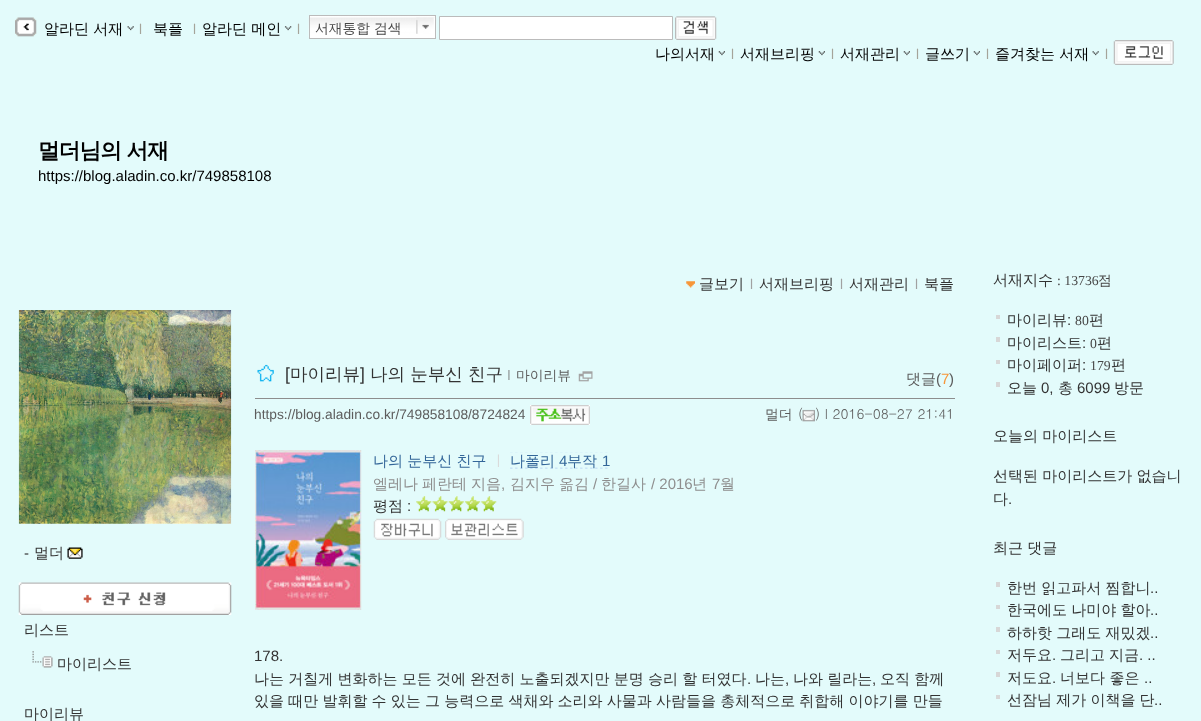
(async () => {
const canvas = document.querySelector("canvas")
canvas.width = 1201
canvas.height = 721
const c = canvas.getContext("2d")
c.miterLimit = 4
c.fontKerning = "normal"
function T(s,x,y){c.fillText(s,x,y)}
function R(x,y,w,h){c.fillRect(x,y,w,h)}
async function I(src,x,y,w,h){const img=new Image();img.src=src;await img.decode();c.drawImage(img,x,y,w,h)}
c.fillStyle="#e3fbfb"
R(0,0,1201,721)
await I("1.png",15,17,22,20)
c.wordSpacing="-0.3px"
c.font="500 15px WenQuanYi Zen Hei"
c.fillStyle="#000"
T("알라딘 서재",44,34)
await I("2.png",127,26,7,5)
c.wordSpacing="0px"
c.fillStyle="#a5a49a"
T("ｌ",133,34)
c.fillStyle="#000"
T("북플",153,34)
c.fillStyle="#a5a49a"
T("ｌ",187,34)
c.wordSpacing="-0.3px"
c.fillStyle="#000"
T("알라딘 메인",202,34)
await I("3.png",284,26,8,5)
c.wordSpacing="0px"
c.fillStyle="#a5a49a"
T("ｌ",291,34)
c.fillStyle="#fff"
R(310,16,125,22)
await I("4.png",308,16,129,21)
c.strokeStyle="#bbb"
c.strokeRect(309.5,15.5,126,23)
c.font="500 13.75px WenQuanYi Zen Hei"
c.fillStyle="#474747"
T("서재통합 검색",315,33)
await I("5.png",416,17,19,17)
c.fillStyle="#fff"
c.beginPath()
c.rect(439.5,16.5,233,23)
c.fill()
c.stroke()
await I("6.png",675,16,42,24)
c.font="500 15px WenQuanYi Zen Hei"
c.fillStyle="#000"
T("나의서재",655,59)
await I("7.png",718,51,7,5)
c.fillStyle="#a5a49a"
T("ｌ",725,59)
c.fillStyle="#000"
T("서재브리핑",740,59)
await I("7.png",818,51,7,5)
c.fillStyle="#a5a49a"
T("ｌ",825,59)
c.fillStyle="#000"
T("서재관리",840,59)
await I("8.png",903,51,7,5)
c.fillStyle="#a5a49a"
T("ｌ",910,59)
c.fillStyle="#000"
T("글쓰기",925,59)
await I("7.png",973,51,7,5)
c.fillStyle="#a5a49a"
T("ｌ",980,59)
c.wordSpacing="-0.3px"
c.fillStyle="#000"
T("즐겨찾는 서재",995,59)
await I("2.png",1092,51,7,5)
c.wordSpacing="0px"
c.fillStyle="#a5a49a"
T("ｌ",1099,59)
await I("9.png",1113,40,61,25)
c.letterSpacing="-1px"
c.font="bold 21.75px WenQuanYi Zen Hei"
c.fillStyle="#000"
T("멀더님의 서재",38,158)
c.letterSpacing="0px"
c.font="15px Liberation Sans"
T("https://blog.aladin.co.kr/749858108",38,181)
await I("10.png",686,281,9,7)
c.font="500 15px WenQuanYi Zen Hei"
c.fillStyle="#333"
T("글보기",699,289)
c.fillStyle="#a1a1a1"
T("ｌ",744,289)
c.fillStyle="#333"
T("서재브리핑",759,289)
c.fillStyle="#a1a1a1"
T("ｌ",834,289)
c.fillStyle="#333"
T("서재관리",849,289)
c.fillStyle="#a1a1a1"
T("ｌ",909,289)
c.fillStyle="#333"
T("북플",924,289)
await I("11.png",18,310,214,214)
c.font="15px Liberation Sans"
T("-",24,558)
c.font="500 15px WenQuanYi Zen Hei"
T("멀더",34,558)
await I("12.png",67,547,16,12)
await I("13.png",18,582,214,33)
T("리스트",24,635)
await I("14.png",32,651,21,17)
T("마이리스트",57,669)
T("마이리뷰",24,719)
c.fillStyle="#8d8d8d"
R(255,398,700,1)
await I("15.png",257,364,17,18)
c.font="17.5px Liberation Sans"
c.fillStyle="#333"
T("[",285,380)
c.font="500 17.5px WenQuanYi Zen Hei"
T("마이리뷰",290,380)
c.font="17.5px Liberation Sans"
T("]",360,380)
c.font="500 17.5px WenQuanYi Zen Hei"
T("나의 눈부신 친구",370,380)
c.font="13.75px Dotum"
c.fillStyle="#6b6b6b"
T("ｌ",502,380)
c.font="500 13.75px WenQuanYi Zen Hei"
c.fillStyle="#5d5d5d"
T("마이리뷰",516,380)
await I("16.png",578,371,15,11)
c.font="500 15px WenQuanYi Zen Hei"
T("댓글",906,384)
c.font="15px Liberation Sans"
T("(",936,384)
c.fillStyle="#f79638"
T("7",941,384)
c.fillStyle="#5d5d5d"
T(")",949,384)
c.font="13.75px Liberation Sans"
T("https://blog.aladin.co.kr/749858108/8724824",254,419)
await I("17.png",530,405,60,20)
c.font="500 13.75px WenQuanYi Zen Hei"
T("멀더",765,419)
c.font="13.75px Dotum"
T("(",798,419)
await I("18.png",802,409,13,13)
T(") l 2016-08-27 21:41",815,419)
await I("19.png",255,450,107,160)
c.wordSpacing="-0.3px"
c.font="500 15px WenQuanYi Zen Hei"
c.fillStyle="#369"
T("나의 눈부신 친구",373,466)
c.wordSpacing="0px"
c.fillStyle="#dadada"
T("ㅣ",491,466)
await I("20.png",510,452,98,17)
c.fillStyle="#369"
T("나폴리",510,466)
c.font="15px Liberation Sans"
T("4",559,466)
c.font="500 15px WenQuanYi Zen Hei"
T("부작",567,466)
c.font="15px Liberation Sans"
T("1",602,466)
c.font="500 15px WenQuanYi Zen Hei"
c.fillStyle="#8e8e8e"
T("엘레나",373,489)
T("페란테",422,489)
T("지음",471,489)
c.font="15px Liberation Sans"
T(",",501,489)
c.font="500 15px WenQuanYi Zen Hei"
T("김지우",510,489)
T("옮김",559,489)
c.font="15px Liberation Sans"
T("/",593,489)
c.font="500 15px WenQuanYi Zen Hei"
T("한길사",601,489)
c.font="15px Liberation Sans"
T("/ 2016",651,489)
c.font="500 15px WenQuanYi Zen Hei"
T("년",692,489)
c.font="15px Liberation Sans"
T("7",712,489)
c.font="500 15px WenQuanYi Zen Hei"
T("월",720,489)
c.fillStyle="#333"
T("평점",373,511)
c.font="15px Liberation Sans"
T(":",407,511)
await I("21.png",416,496,81,16)
await I("22.png",373,518,69,22)
await I("23.png",445,518,79,22)
T("178.",254,661)
c.wordSpacing="-0.25px"
c.font="500 15px WenQuanYi Zen Hei"
T("나는 거칠게 변화하는 모든 것에 완전히 노출되겠지만 분명 승리 할 터였다",254,684)
c.wordSpacing="0px"
c.font="15px Liberation Sans"
T(".",747,684)
c.font="500 15px WenQuanYi Zen Hei"
T("나는",755,684)
c.font="15px Liberation Sans"
T(",",785,684)
c.wordSpacing="-0.25px"
c.font="500 15px WenQuanYi Zen Hei"
T("나와 릴라는",793,684)
c.wordSpacing="0px"
c.font="15px Liberation Sans"
T(",",872,684)
c.wordSpacing="-0.25px"
c.font="500 15px WenQuanYi Zen Hei"
T("오직 함께",880,684)
c.wordSpacing="-0.3px"
T("있을 때만 발휘할 수 있는 그 능력으로 색채와 소리와 사물과 사람들을 총체적으로 취합해 이야기를 만들",254,706)
c.wordSpacing="0px"
T("서재지수",993,285)
c.font="13.75px Liberation Serif"
c.fillStyle="#474747"
T(": 13736",1057,285)
c.font="500 13.75px WenQuanYi Zen Hei"
T("점",1098,285)
c.fillStyle="#d7d7d7"
R(996,315,4,4)
c.font="500 15px WenQuanYi Zen Hei"
c.fillStyle="#333"
T("마이리뷰",1007,325)
c.font="15px Liberation Sans"
T(":",1067,325)
c.font="13.75px Liberation Serif"
c.fillStyle="#474747"
T("80",1075,325)
c.font="500 15px WenQuanYi Zen Hei"
c.fillStyle="#333"
T("편",1089,325)
c.fillStyle="#d7d7d7"
R(996,337,4,5)
c.fillStyle="#333"
T("마이리스트",1007,348)
c.font="15px Liberation Sans"
T(":",1082,348)
c.font="13.75px Liberation Serif"
c.fillStyle="#474747"
T("0",1090,348)
c.font="500 15px WenQuanYi Zen Hei"
c.fillStyle="#333"
T("편",1097,348)
c.fillStyle="#d7d7d7"
R(996,360,4,4)
c.fillStyle="#333"
T("마이페이퍼",1007,370)
c.font="15px Liberation Sans"
T(":",1082,370)
c.font="13.75px Liberation Serif"
c.fillStyle="#474747"
T("179",1090,370)
c.font="500 15px WenQuanYi Zen Hei"
c.fillStyle="#333"
T("편",1111,370)
c.fillStyle="#d7d7d7"
R(996,382,4,5)
c.fillStyle="#333"
T("오늘",1007,393)
c.font="15px Liberation Sans"
T("0,",1041,393)
c.font="500 15px WenQuanYi Zen Hei"
T("총",1058,393)
c.font="15px Liberation Sans"
T("6099",1077,393)
c.font="500 15px WenQuanYi Zen Hei"
T("방문",1114,393)
c.wordSpacing="-0.3px"
T("오늘의 마이리스트",993,441)
T("선택된 마이리스트가 없습니",993,481)
c.wordSpacing="0px"
T("다",993,504)
c.font="15px Liberation Sans"
T(".",1008,504)
c.wordSpacing="-0.3px"
c.font="500 15px WenQuanYi Zen Hei"
T("최근 댓글",993,553)
c.fillStyle="#d7d7d7"
R(996,582,4,5)
c.fillStyle="#333"
T("한번 읽고파서 찜합니",1007,593)
c.wordSpacing="0px"
c.font="15px Liberation Sans"
T("..",1150,593)
c.fillStyle="#d7d7d7"
R(996,605,4,4)
c.wordSpacing="-0.3px"
c.font="500 15px WenQuanYi Zen Hei"
c.fillStyle="#333"
T("한국에도 나미야 할아",1007,615)
c.wordSpacing="0px"
c.font="15px Liberation Sans"
T("..",1150,615)
c.fillStyle="#d7d7d7"
R(996,627,4,5)
c.wordSpacing="-0.3px"
c.font="500 15px WenQuanYi Zen Hei"
c.fillStyle="#333"
T("하하핫 그래도 재밌겠",1007,638)
c.wordSpacing="0px"
c.font="15px Liberation Sans"
T("..",1150,638)
c.fillStyle="#d7d7d7"
R(996,650,4,4)
c.font="500 15px WenQuanYi Zen Hei"
c.fillStyle="#333"
T("저두요",1007,660)
c.font="15px Liberation Sans"
T(".",1052,660)
c.font="500 15px WenQuanYi Zen Hei"
T("그리고",1060,660)
T("지금",1109,660)
c.font="15px Liberation Sans"
T(". ..",1139,660)
c.fillStyle="#d7d7d7"
R(996,672,4,5)
c.font="500 15px WenQuanYi Zen Hei"
c.fillStyle="#333"
T("저도요",1007,683)
c.font="15px Liberation Sans"
T(".",1052,683)
c.font="500 15px WenQuanYi Zen Hei"
T("너보다 좋은",1060,683)
c.font="15px Liberation Sans"
T("..",1144,683)
c.fillStyle="#d7d7d7"
R(996,695,4,4)
c.wordSpacing="-0.3px"
c.font="500 15px WenQuanYi Zen Hei"
c.fillStyle="#333"
T("선잠님 제가 이책을 단",1007,705)
c.wordSpacing="0px"
c.font="15px Liberation Sans"
T("..",1154,705)
})()
